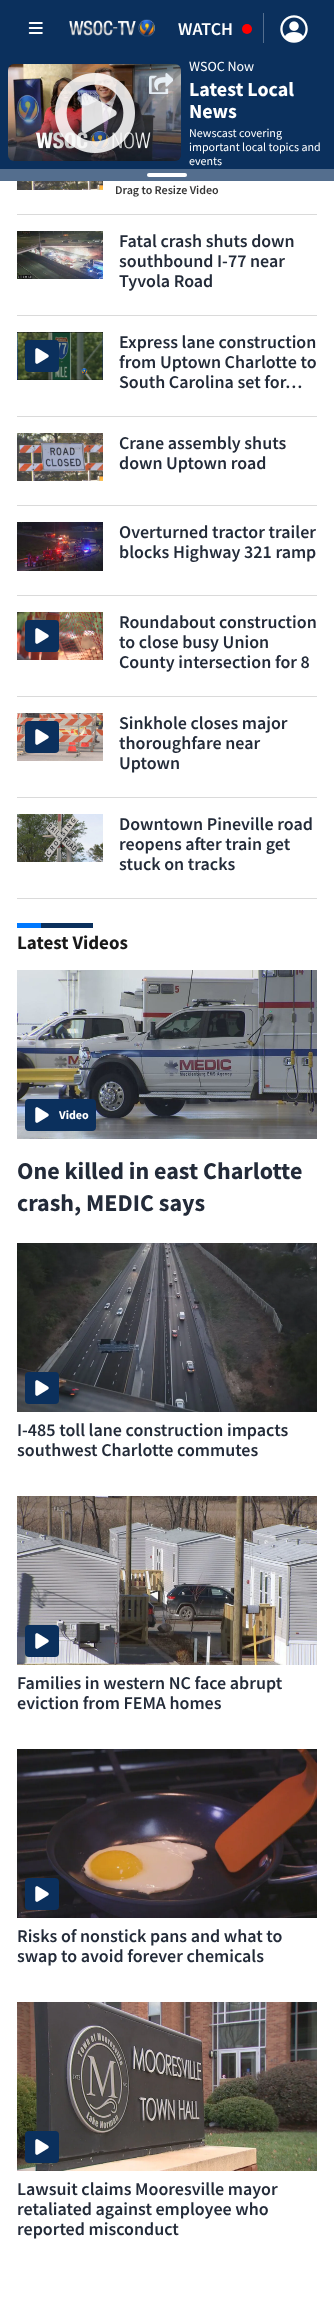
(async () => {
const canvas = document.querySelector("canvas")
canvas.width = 334
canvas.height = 2304
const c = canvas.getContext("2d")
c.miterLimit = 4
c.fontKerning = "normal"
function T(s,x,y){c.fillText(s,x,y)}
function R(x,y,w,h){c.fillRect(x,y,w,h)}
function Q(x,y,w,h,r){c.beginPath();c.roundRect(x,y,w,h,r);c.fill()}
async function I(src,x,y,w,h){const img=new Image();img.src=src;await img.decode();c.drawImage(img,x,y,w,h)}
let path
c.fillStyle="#fff"
R(0,0,334,2304)
c.fillStyle="#0b305d"
R(0,56,334,113)
await I("4.png",8,64,173,97)
c.save()
c.beginPath()
c.roundRect(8,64,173,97,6)
c.clip()
path = new Path2D("M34 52h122v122h-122zm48 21h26c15 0 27 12 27 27v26c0 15-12 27-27 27h-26c-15 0-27-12-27-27v-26c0-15 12-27 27-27z")
c.clip(path,"evenodd")
c.fillStyle="#00000036"
c.filter="blur(5px)"
c.beginPath()
c.roundRect(50,68,90,90,32)
c.fill()
c.filter="none"
c.restore()
R(0,0,334,56)
await I("1.png",28,22,15,12)
await I("2.png",69,19,86,18)
c.font="600 18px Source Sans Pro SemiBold"
c.fillStyle="#fff"
T("WATCH",178,35)
c.fillStyle="#f00"
c.beginPath()
c.arc(247,29,5,0,7)
c.fill()
c.fillStyle="#546e8e"
R(263,13,1,30)
await I("3.png",280,15,28,28)
c.fillStyle="#00000036"
Q(55,73,80,80,27)
await I("5.png",55,73,80,80)
c.save()
path = new Path2D("M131 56h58v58h-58zm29 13c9 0 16 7 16 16c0 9-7 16-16 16c-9 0-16-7-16-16c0-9 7-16 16-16z")
c.clip(path,"evenodd")
c.fillStyle="#0000001a"
c.filter="blur(3px)"
c.beginPath()
c.roundRect(141,66,38,38,19)
c.fill()
c.filter="none"
c.restore()
c.fillStyle="#0000001a"
c.beginPath()
c.arc(160,85,16,0,7)
c.fill()
await I("6.png",149,73,24,21)
c.font="14px Source Sans Pro"
c.fillStyle="#fff"
T("WSOC Now",189,71)
c.font="bold 20px Source Sans Pro"
T("Latest Local",189,96)
T("News",189,118)
c.font="12px Source Sans Pro"
T("Newscast covering",189,137)
T("important local topics and",189,151)
T("events",189,165)
c.fillStyle="#546e8e"
R(0,169,334,12)
c.fillStyle="#fff"
Q(147,173,40,4,2)
c.font="600 12px Source Sans Pro SemiBold"
c.fillStyle="#363636"
T("Drag to Resize Video",115,194)
await I("7.png",17,181,86,9)
c.fillStyle="#dadada"
R(17,214,300,1)
await I("8.png",17,231,86,48)
c.font="600 18px Source Sans Pro SemiBold"
c.fillStyle="#232b39"
T("Fatal crash shuts down",119,247)
T("southbound I-77 near",119,267)
T("Tyvola Road",119,287)
c.fillStyle="#dadada"
R(17,315,300,1)
await I("9.png",17,332,86,48)
c.fillStyle="#0b305d"
Q(25,340,34,32,4)
await I("10.png",35,348,14,16)
c.fillStyle="#232b39"
T("Express lane construction",119,348)
T("from Uptown Charlotte to",119,368)
T("South Carolina set for…",119,388)
c.fillStyle="#dadada"
R(17,416,300,1)
await I("11.png",17,433,86,48)
c.fillStyle="#232b39"
T("Crane assembly shuts",119,449)
T("down Uptown road",119,469)
c.fillStyle="#dadada"
R(17,505,300,1)
await I("12.png",17,522,86,49)
c.fillStyle="#232b39"
T("Overturned tractor trailer",119,538)
T("blocks Highway 321 ramp",119,558)
c.fillStyle="#dadada"
R(17,595,300,1)
await I("13.png",17,612,86,48)
c.fillStyle="#0b305d"
Q(25,620,34,32,4)
await I("10.png",35,628,14,16)
c.fillStyle="#232b39"
T("Roundabout construction",119,628)
T("to close busy Union",119,648)
T("County intersection for 8",119,668)
c.fillStyle="#dadada"
R(17,696,300,1)
await I("14.png",17,713,86,48)
c.fillStyle="#0b305d"
Q(25,721,34,32,4)
await I("10.png",35,729,14,16)
c.fillStyle="#232b39"
T("Sinkhole closes major",119,729)
T("thoroughfare near",119,749)
T("Uptown",119,769)
c.fillStyle="#dadada"
R(17,797,300,1)
await I("15.png",17,814,86,48)
c.fillStyle="#232b39"
T("Downtown Pineville road",119,830)
T("reopens after train get",119,850)
T("stuck on tracks",119,870)
c.fillStyle="#dadada"
R(17,898,300,1)
c.fillStyle="#0b305d"
R(41,923,52,5)
c.fillStyle="#0079ff"
R(17,923,24,5)
c.font="bold 19px Source Sans Pro"
c.fillStyle="#191919"
T("Latest Videos",17,949)
await I("16.png",17,970,300,169)
c.fillStyle="#0b305d"
Q(25,1099,71,32,4)
await I("10.png",35,1107,14,16)
c.font="bold 12px Source Sans Pro"
c.fillStyle="#fff"
T("Video",59,1119)
c.font="bold 24px Source Sans Pro"
c.fillStyle="#232b39"
T("One killed in east Charlotte",17,1179)
T("crash, MEDIC says",17,1211)
await I("17.png",17,1243,300,169)
c.fillStyle="#0b305d"
Q(25,1372,34,32,4)
await I("10.png",35,1380,14,16)
c.font="600 18px Source Sans Pro SemiBold"
c.fillStyle="#232b39"
T("I-485 toll lane construction impacts",17,1436)
T("southwest Charlotte commutes",17,1456)
await I("18.png",17,1496,300,169)
c.fillStyle="#0b305d"
Q(25,1625,34,32,4)
await I("10.png",35,1633,14,16)
c.fillStyle="#232b39"
T("Families in western NC face abrupt",17,1689)
T("eviction from FEMA homes",17,1709)
await I("19.png",17,1749,300,169)
c.fillStyle="#0b305d"
Q(25,1878,34,32,4)
await I("10.png",35,1886,14,16)
c.fillStyle="#232b39"
T("Risks of nonstick pans and what to",17,1942)
T("swap to avoid forever chemicals",17,1962)
await I("20.png",17,2002,300,169)
c.fillStyle="#0b305d"
Q(25,2131,34,32,4)
await I("10.png",35,2139,14,16)
c.fillStyle="#232b39"
T("Lawsuit claims Mooresville mayor",17,2195)
T("retaliated against employee who",17,2215)
T("reported misconduct",17,2235)
})()
